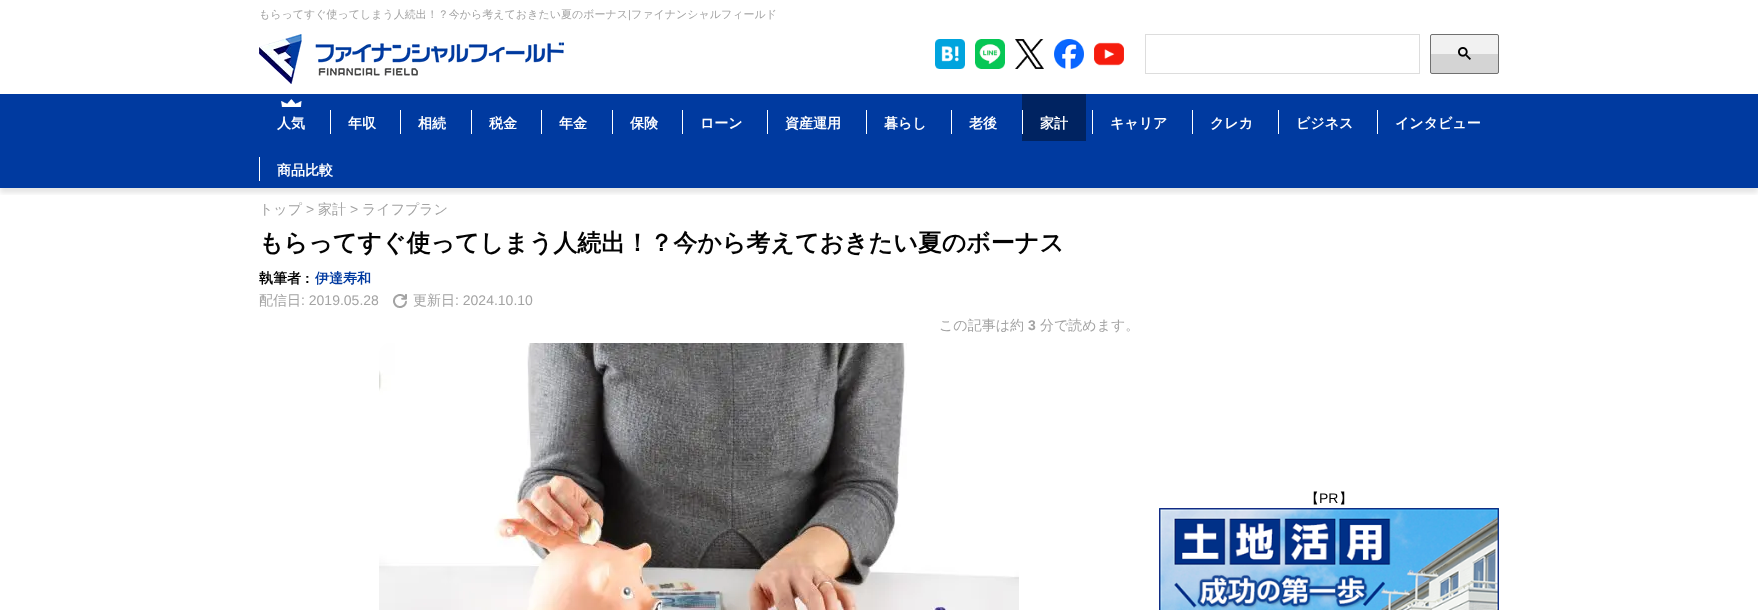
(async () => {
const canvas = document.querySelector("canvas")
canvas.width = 1758
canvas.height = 610
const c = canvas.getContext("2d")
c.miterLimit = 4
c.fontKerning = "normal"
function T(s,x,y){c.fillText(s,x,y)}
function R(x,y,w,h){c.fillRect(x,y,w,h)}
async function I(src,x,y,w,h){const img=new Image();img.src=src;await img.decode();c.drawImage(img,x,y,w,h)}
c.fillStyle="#fff"
R(0,0,1758,610)
c.save()
c.beginPath()
c.rect(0,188,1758,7)
c.clip()
c.fillStyle="#0000001a"
c.filter="blur(2.5px)"
c.beginPath()
c.rect(0,5,1758,188)
c.fill()
c.filter="none"
c.restore()
c.font="500 11px WenQuanYi Zen Hei"
c.fillStyle="#a3a3a3"
T("もらってすぐ使ってしまう人続出！？今から考えておきたい夏のボーナス",259,18)
c.font="11px Liberation Sans"
T("|",628,18)
c.font="500 11px WenQuanYi Zen Hei"
T("ファイナンシャルフィールド",631,18)
await I("1.png",259,34,305,50)
await I("2.png",935,39,30,30)
await I("3.png",975,39,30,30)
await I("4.png",1015,39,29,30)
await I("5.png",1054,39,30,30)
await I("6.png",1094,42,30,24)
c.strokeStyle="#ddd"
c.strokeRect(1145.5,34.5,274,39)
c.fillStyle="#f1f1f1"
R(1430,35,69,19)
c.fillStyle="#d4d4d4"
R(1430,54,69,19)
c.beginPath()
c.roundRect(1430.5,34.5,68,39,1.5)
c.strokeStyle="#707070"
c.stroke()
await I("7.png",1458,47,13,13)
c.fillStyle="#003aa0"
R(0,94,1758,94)
await I("8.png",281,99,21,8)
c.font="bold 14px WenQuanYi Zen Hei"
c.fillStyle="#fff"
T("人気",277,128)
R(330,110,1,24)
T("年収",348,128)
R(400,110,1,24)
T("相続",418,128)
R(471,110,1,24)
T("税金",489,128)
R(541,110,1,24)
T("年金",559,128)
R(612,110,1,24)
T("保険",630,128)
R(682,110,1,24)
T("ローン",700,128)
R(767,110,1,24)
T("資産運用",785,128)
R(866,110,1,24)
T("暮らし",884,128)
R(951,110,1,24)
T("老後",969,128)
c.fillStyle="#002361"
R(1022,94,64,47)
c.fillStyle="#fff"
R(1022,110,1,24)
T("家計",1040,128)
R(1092,110,1,24)
T("キャリア",1110,128)
R(1192,110,1,24)
T("クレカ",1210,128)
R(1278,110,1,24)
T("ビジネス",1296,128)
R(1377,110,1,24)
T("インタビュー",1395,128)
R(259,157,1,24)
T("商品比較",277,175)
c.font="500 14px WenQuanYi Zen Hei"
c.fillStyle="#a3a3a3"
T("トップ",259,214)
c.font="14px Liberation Sans"
T(">",306,214)
c.font="500 14px WenQuanYi Zen Hei"
T("家計",318,214)
c.font="14px Liberation Sans"
T(">",350,214)
c.font="500 14px WenQuanYi Zen Hei"
T("ライフプラン",362,214)
c.font="bold 24px WenQuanYi Zen Hei"
c.fillStyle="#030303"
T("もらってすぐ使ってしまう人続出！？今から考えておきたい夏のボーナス",259,251)
c.font="bold 14px WenQuanYi Zen Hei"
T("執筆者",259,283)
c.font="bold 14px Liberation Sans"
T(":",305,283)
c.font="bold 14px WenQuanYi Zen Hei"
c.fillStyle="#003aa0"
T("伊達寿和",315,283)
c.font="500 14px WenQuanYi Zen Hei"
c.fillStyle="#a3a3a3"
T("配信日",259,305)
c.font="14px Liberation Sans"
T(": 2019.05.28",301,305)
await I("9.png",393,294,14,14)
c.font="500 14px WenQuanYi Zen Hei"
T("更新日",413,305)
c.font="14px Liberation Sans"
T(": 2024.10.10",455,305)
c.font="500 14px WenQuanYi Zen Hei"
T("この記事は約",939,330)
c.font="bold 14px Liberation Sans"
T("3",1028,330)
c.font="500 14px WenQuanYi Zen Hei"
T("分で読めます。",1040,330)
await I("10.png",379,343,640,267)
c.fillStyle="#030303"
T("【",1305,503)
c.font="14px Liberation Sans"
T("PR",1319,503)
c.font="500 14px WenQuanYi Zen Hei"
T("】",1339,503)
await I("11.png",1159,508,340,102)
})()
